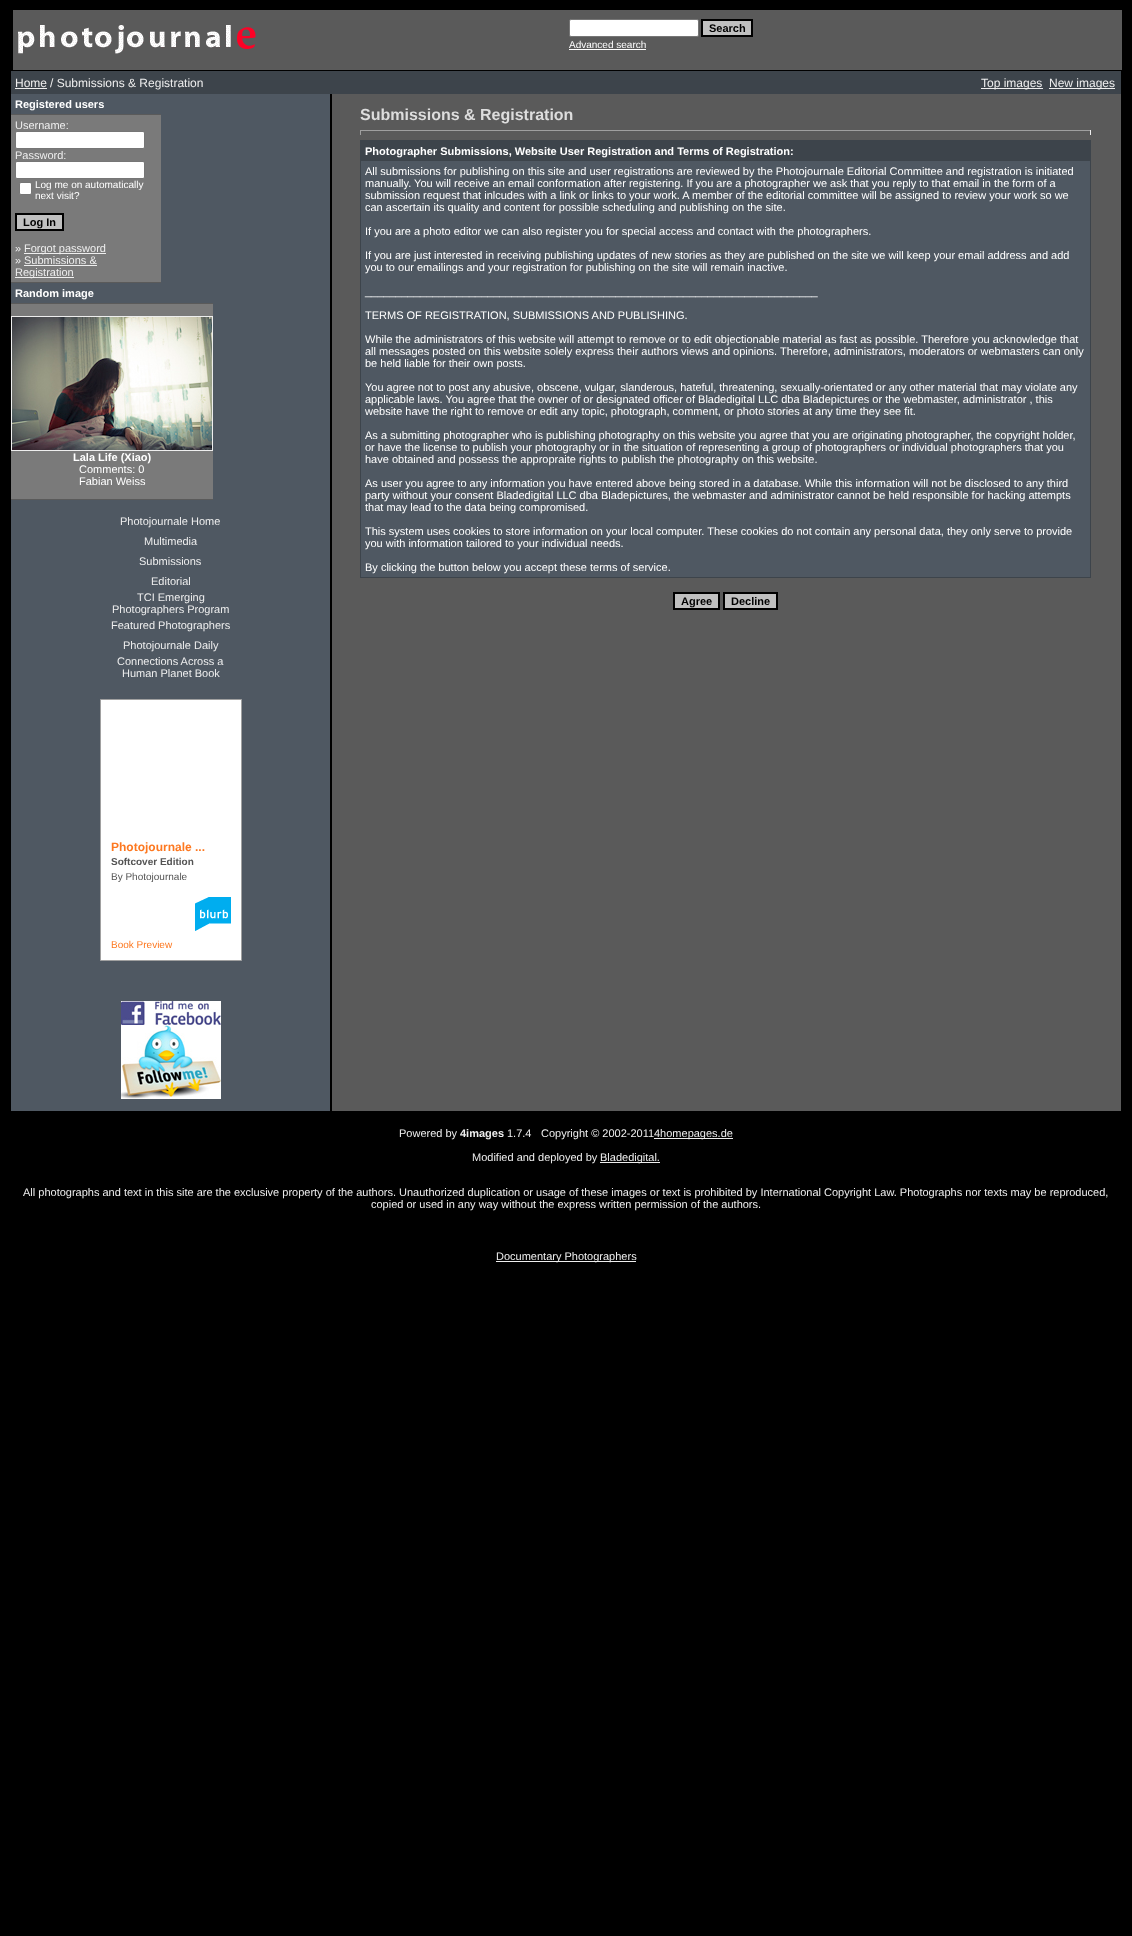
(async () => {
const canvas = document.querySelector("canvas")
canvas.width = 1132
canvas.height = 1936
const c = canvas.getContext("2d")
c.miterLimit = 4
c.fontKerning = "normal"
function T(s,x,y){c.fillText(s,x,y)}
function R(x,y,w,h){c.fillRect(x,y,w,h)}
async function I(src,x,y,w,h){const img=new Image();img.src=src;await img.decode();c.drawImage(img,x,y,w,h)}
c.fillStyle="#000"
R(0,0,1132,1936)
c.fillStyle="#5a5a5a"
R(13,10,1109,60)
await I("1.png",18,25,238,29)
c.fillStyle="#fff"
c.beginPath()
c.roundRect(569.5,19.5,129,17,1.5)
c.fill()
c.strokeStyle="#767676"
c.stroke()
c.fillStyle="#c0c0c0"
c.beginPath()
c.rect(702,20,50,16)
c.fill()
c.strokeStyle="#000"
c.lineWidth=2
c.stroke()
c.font="bold 11px Liberation Sans"
c.fillStyle="#000"
T("Search",709,32)
c.font="10px Liberation Sans"
c.fillStyle="#fff"
T("Advanced search",569,48)
R(569,49,77,1)
c.fillStyle="#5a5a5a"
R(332,94,789,1017)
c.fillStyle="#3d444b"
R(11,71,1110,23)
c.font="12px Liberation Sans"
c.fillStyle="#eee"
T("Home",15,87)
R(15,88,32,1)
T("/ Submissions & Registration",50,87)
R(981,88,62,1)
T("Top images",981,87)
R(1049,88,66,1)
T("New images",1049,87)
c.fillStyle="#4f5862"
R(11,94,319,1017)
c.font="bold 11px Liberation Sans"
c.fillStyle="#fff"
T("Registered users",15,108)
c.fillStyle="#5a5a5a"
R(11,114,150,1)
c.fillStyle="#7a7a7a"
R(11,115,150,167)
c.font="11px Liberation Sans"
c.fillStyle="#eee"
T("Username:",15,129)
c.fillStyle="#fff"
c.beginPath()
c.roundRect(15.5,131.5,129,17,1.5)
c.fill()
c.strokeStyle="#767676"
c.lineWidth=1
c.stroke()
c.fillStyle="#eee"
T("Password:",15,159)
c.fillStyle="#fff"
c.beginPath()
c.roundRect(15.5,161.5,129,17,1.5)
c.fill()
c.stroke()
c.beginPath()
c.roundRect(19.5,182.5,12,12,1.5)
c.fill()
c.stroke()
c.font="10px Liberation Sans"
T("Log me on automatically",35,188)
T("next visit?",35,199)
c.fillStyle="#c0c0c0"
c.beginPath()
c.rect(16,214,47,16)
c.fill()
c.strokeStyle="#000"
c.lineWidth=2
c.stroke()
c.font="bold 11px Liberation Sans"
c.fillStyle="#000"
T("Log In",23,226)
c.font="11px Liberation Sans"
c.fillStyle="#eee"
T("»",15,252)
R(24,253,82,1)
T("Forgot password",24,252)
T("»",15,264)
T("Submissions &",24,264)
R(24,265,73,1)
R(15,277,59,1)
T("Registration",15,276)
c.fillStyle="#5a5a5a"
R(11,282,150,1)
c.font="bold 11px Liberation Sans"
c.fillStyle="#fff"
T("Random image",15,297)
c.fillStyle="#5a5a5a"
R(11,303,202,1)
c.fillStyle="#7a7a7a"
R(11,304,202,195)
c.strokeStyle="#eee"
c.lineWidth=1
c.strokeRect(11.5,316.5,201,134)
await I("2.png",12,317,200,133)
c.fillStyle="#fff"
T("Lala Life (Xiao)",73,461)
c.font="11px Liberation Sans"
T("Comments: 0",79,473)
T("Fabian Weiss",79,485)
c.fillStyle="#5a5a5a"
R(11,499,202,1)
c.fillStyle="#eee"
T("Photojournale Home",120,525)
T("Multimedia",144,545)
T("Submissions",139,565)
T("Editorial",151,585)
T("TCI Emerging",137,601)
T("Photographers Program",112,613)
T("Featured Photographers",111,629)
T("Photojournale Daily",123,649)
T("Connections Across a",117,665)
T("Human Planet Book",122,677)
c.fillStyle="#fff"
c.beginPath()
c.rect(100.5,699.5,141,261)
c.fill()
c.strokeStyle="#a0a0a0"
c.stroke()
c.font="bold 12px Liberation Sans"
c.fillStyle="#fd7820"
T("Photojournale ...",111,851)
c.font="bold 10px Liberation Sans"
c.fillStyle="#545454"
T("Softcover Edition",111,865)
c.font="10px Liberation Sans"
T("By Photojournale",111,880)
await I("3.png",195,897,36,34)
c.fillStyle="#fd7820"
T("Book Preview",111,948)
await I("4.png",121,1001,100,24)
await I("5.png",121,1025,100,74)
c.font="bold 16px Liberation Sans"
c.fillStyle="#ddd"
T("Submissions & Registration",360,120)
c.fillStyle="#9f9f9f"
R(360,130,731,1)
c.fillStyle="#eee"
R(1090,130,1,5)
c.fillStyle="#9f9f9f"
R(360,130,1,5)
c.fillStyle="#3d444b"
R(360,140,731,438)
c.font="bold 11px Liberation Sans"
c.fillStyle="#fff"
T("Photographer Submissions, Website User Registration and Terms of Registration:",365,155)
c.fillStyle="#4f5862"
R(361,161,729,416)
c.font="11px Liberation Sans"
c.fillStyle="#fff"
T("All submissions for publishing on this site and user registrations are reviewed by the Photojournale Editorial Committee and registration is initiated",365,175)
T("manually. You will receive an email conformation after registering. If you are a photographer we ask that you reply to that email in the form of a",365,187)
T("submission request that inlcudes with a link or links to your work. A member of the editorial committee will be assigned to review your work so we",365,199)
T("can ascertain its quality and content for possible scheduling and publishing on the site.",365,211)
T("If you are a photo editor we can also register you for special access and contact with the photographers.",365,235)
T("If you are just interested in receiving publishing updates of new stories as they are published on the site we will keep your email address and add",365,259)
T("you to our emailings and your registration for publishing on the site will remain inactive.",365,271)
T("__________________________________________________________________________",365,295)
T("TERMS OF REGISTRATION, SUBMISSIONS AND PUBLISHING.",365,319)
T("While the administrators of this website will attempt to remove or to edit objectionable material as fast as possible. Therefore you acknowledge that",365,343)
T("all messages posted on this website solely express their authors views and opinions. Therefore, administrators, moderators or webmasters can only",365,355)
T("be held liable for their own posts.",365,367)
T("You agree not to post any abusive, obscene, vulgar, slanderous, hateful, threatening, sexually-orientated or any other material that may violate any",365,391)
T("applicable laws. You agree that the owner of or designated officer of Bladedigital LLC dba Bladepictures or the webmaster, administrator , this",365,403)
T("website have the right to remove or edit any topic, photograph, comment, or photo stories at any time they see fit.",365,415)
T("As a submitting photographer who is publishing photography on this website you agree that you are originating photographer, the copyright holder,",365,439)
T("or have the license to publish your photography or in the situation of representing a group of photographers or individual photographers that you",365,451)
T("have obtained and possess the appropraite rights to publish the photography on this website.",365,463)
T("As user you agree to any information you have entered above being stored in a database. While this information will not be disclosed to any third",365,487)
T("party without your consent Bladedigital LLC dba Bladepictures, the webmaster and administrator cannot be held responsible for hacking attempts",365,499)
T("that may lead to the data being compromised.",365,511)
T("This system uses cookies to store information on your local computer. These cookies do not contain any personal data, they only serve to provide",365,535)
T("you with information tailored to your individual needs.",365,547)
T("By clicking the button below you accept these terms of service.",365,571)
c.fillStyle="#c0c0c0"
c.beginPath()
c.rect(674,593,45,16)
c.fill()
c.strokeStyle="#000"
c.lineWidth=2
c.stroke()
c.font="bold 11px Liberation Sans"
c.fillStyle="#000"
T("Agree",681,605)
c.fillStyle="#c0c0c0"
c.beginPath()
c.rect(724,593,53,16)
c.fill()
c.stroke()
c.fillStyle="#000"
T("Decline",731,605)
c.font="11px Liberation Sans"
c.fillStyle="#eee"
T("Powered by",399,1137)
c.font="bold 11px Liberation Sans"
T("4images",460,1137)
c.font="11px Liberation Sans"
T("1.7.4",507,1137)
T("Copyright © 2002-2011",541,1137)
R(654,1138,79,1)
T("4homepages.de",654,1137)
T("Modified and deployed by",472,1161)
R(600,1162,60,1)
T("Bladedigital.",600,1161)
T("All photographs and text in this site are the exclusive property of the authors. Unauthorized duplication or usage of these images or text is prohibited by International Copyright Law. Photographs nor texts may be reproduced,",23,1196)
T("copied or used in any way without the express written permission of the authors.",371,1208)
R(496,1261,140,1)
T("Documentary Photographers",496,1260)
})()
